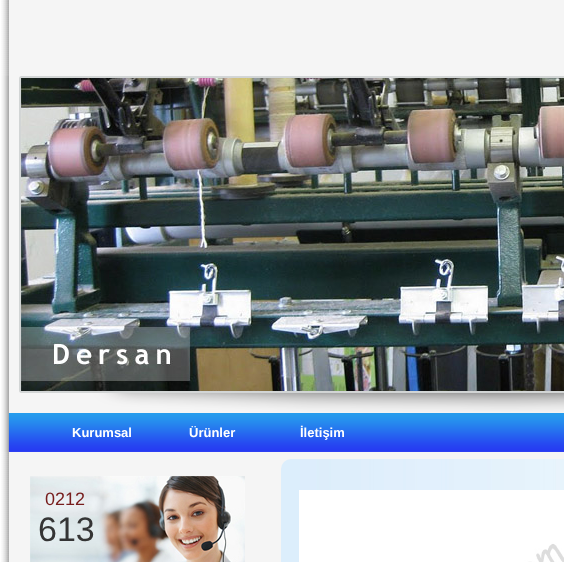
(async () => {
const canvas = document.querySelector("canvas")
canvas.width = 564
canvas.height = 562
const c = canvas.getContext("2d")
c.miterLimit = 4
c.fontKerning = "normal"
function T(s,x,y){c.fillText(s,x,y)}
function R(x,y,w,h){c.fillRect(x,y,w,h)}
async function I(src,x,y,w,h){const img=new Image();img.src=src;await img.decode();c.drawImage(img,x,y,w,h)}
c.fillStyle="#fff"
R(0,0,564,562)
await I("1.png",1,0,563,76)
await I("2.png",1,76,563,317)
await I("3.png",21,78,543,313)
await I("4.png",1,393,563,20)
await I("5.png",1,413,563,39)
c.font="bold 13px Liberation Sans"
T("Kurumsal",72,437)
T("Ürünler",189,437)
T("İletişim",300,437)
await I("6.png",1,452,563,110)
await I("7.png",30,476,215,86)
c.font="18px Liberation Sans"
c.fillStyle="#771d1d"
T("0212",45,505)
c.font="34px Liberation Sans"
c.fillStyle="#353535"
T("613",38,541)
await I("8.png",281,459,283,103)
await I("9.png",299,490,265,72)
})()
